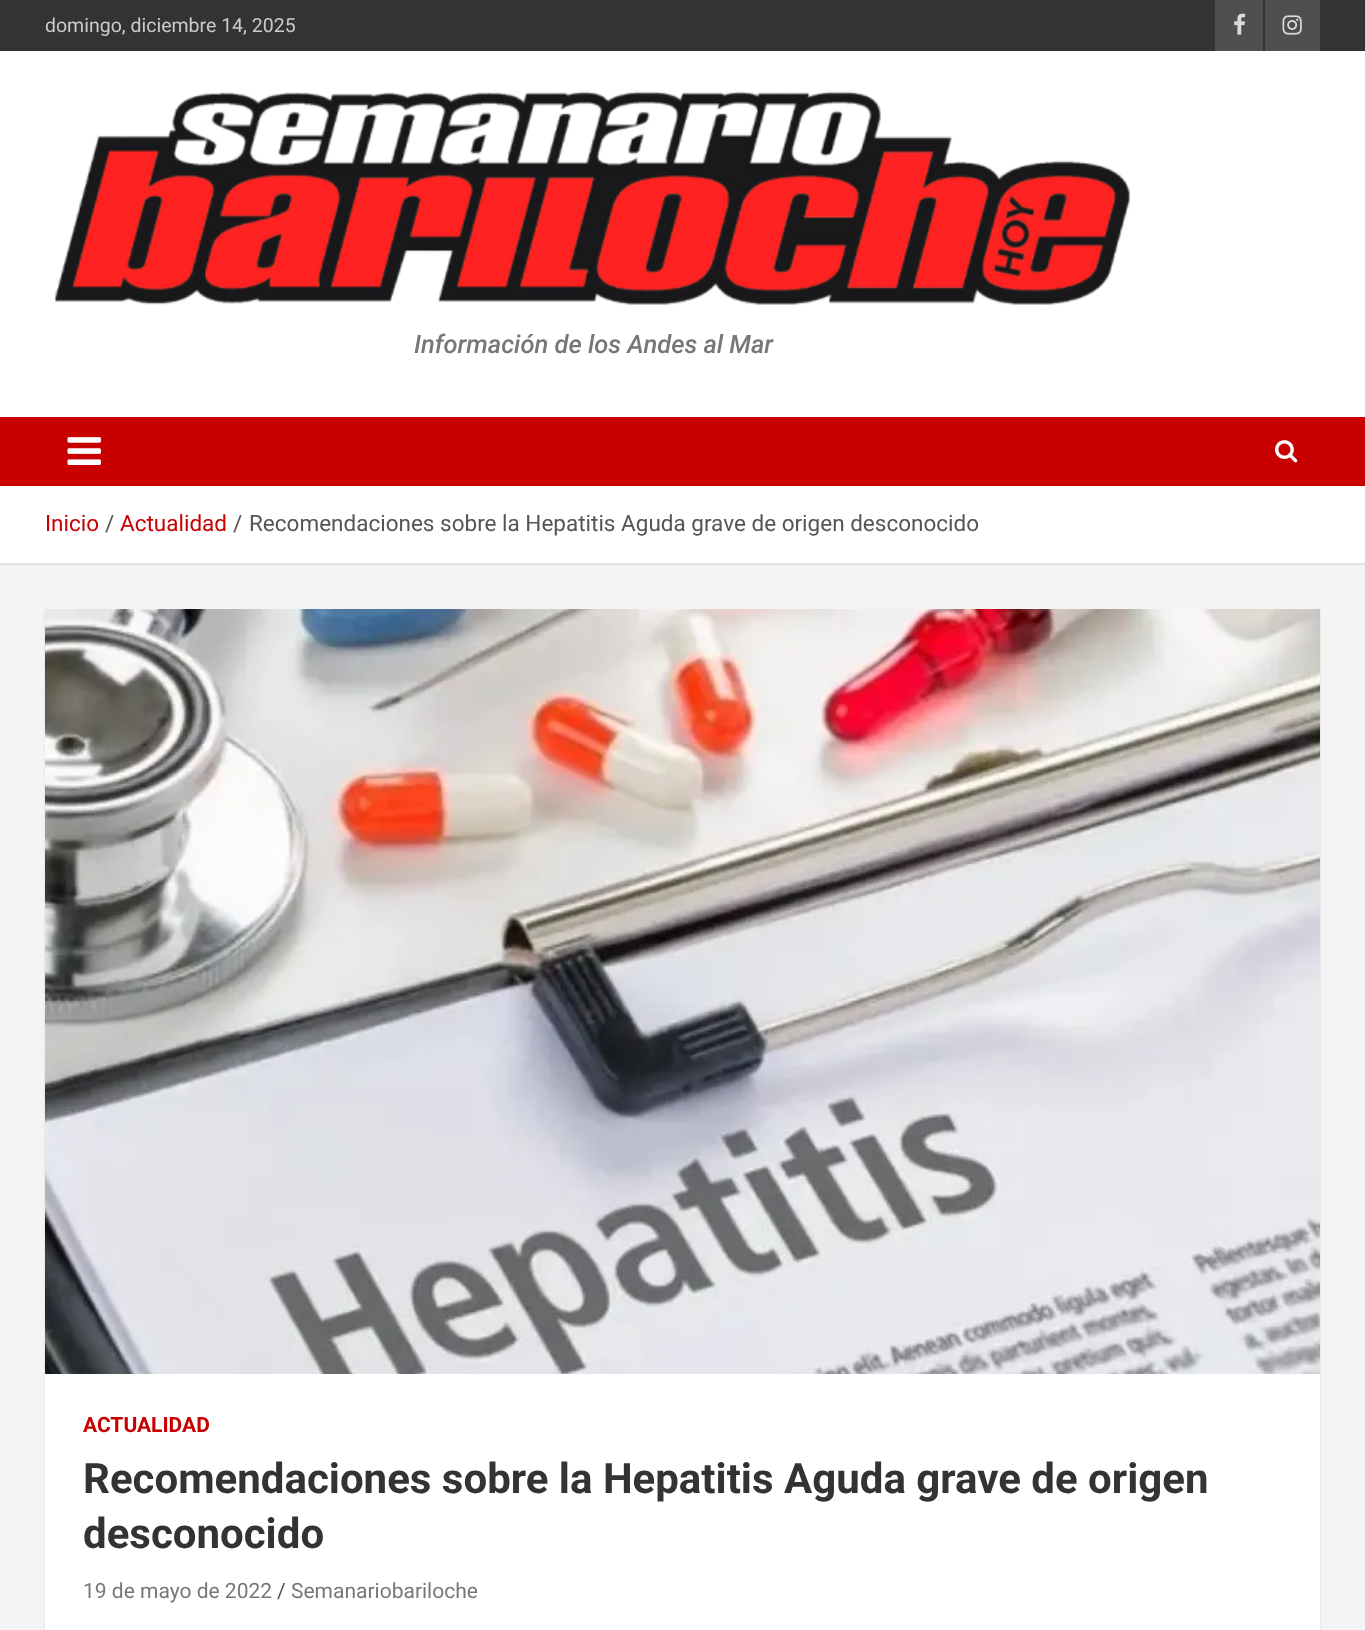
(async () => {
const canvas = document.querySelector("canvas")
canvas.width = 1365
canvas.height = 1630
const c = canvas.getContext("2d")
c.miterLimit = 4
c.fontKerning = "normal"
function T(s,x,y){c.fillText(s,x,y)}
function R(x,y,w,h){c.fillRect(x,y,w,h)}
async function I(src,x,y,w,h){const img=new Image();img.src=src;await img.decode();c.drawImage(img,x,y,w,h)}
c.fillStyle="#f4f4f4"
R(0,0,1365,1630)
c.fillStyle="#dcdcdc"
R(0,564,1365,1)
c.fillStyle="#333"
R(0,0,1365,51)
c.font="19.5px Roboto"
c.fillStyle="#ccc"
T("domingo, diciembre 14, 2025",45,32)
c.fillStyle="#4f4f4f"
R(1215,0,48,51)
await I("1.png",1234,13,12,22)
R(1265,0,55,51)
await I("2.png",1282,15,20,20)
c.fillStyle="#fff"
R(0,51,1365,366)
await I("3.png",55,91,1075,214)
c.font="italic 500 25.5px Roboto"
c.fillStyle="#777"
T("Información de los Andes al Mar",414,353)
c.fillStyle="#c80000"
R(0,417,1365,69)
await I("4.png",67,437,34,28)
await I("5.png",1275,440,23,23)
c.fillStyle="#fff"
R(0,486,1365,77)
c.fillStyle="#e6e6e6"
R(0,563,1365,1)
c.font="22.5px Roboto"
c.fillStyle="#c80000"
T("Inicio",45,531)
c.fillStyle="#555"
T("/",105,531)
c.fillStyle="#c80000"
T("Actualidad",120,531)
c.fillStyle="#555"
T("/",233,531)
T("Recomendaciones sobre la Hepatitis Aguda grave de origen desconocido",249,531)
c.fillStyle="#0000001a"
c.filter="blur(1px)"
c.beginPath()
c.rect(45,611,1275,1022)
c.fill()
c.filter="none"
c.fillStyle="#fff"
R(45,1374,1275,256)
await I("6.png",45,609,1275,765)
c.font="bold 21px Roboto"
c.fillStyle="#c80000"
T("ACTUALIDAD",83,1432)
c.font="bold 42px Roboto"
c.fillStyle="#333"
T("Recomendaciones sobre la Hepatitis Aguda grave de origen",83,1493)
T("desconocido",83,1548)
c.font="21px Roboto"
c.fillStyle="#777"
T("19 de mayo de 2022",83,1598)
c.fillStyle="#555"
T("/",277,1598)
c.fillStyle="#777"
T("Semanariobariloche",291,1598)
})()
